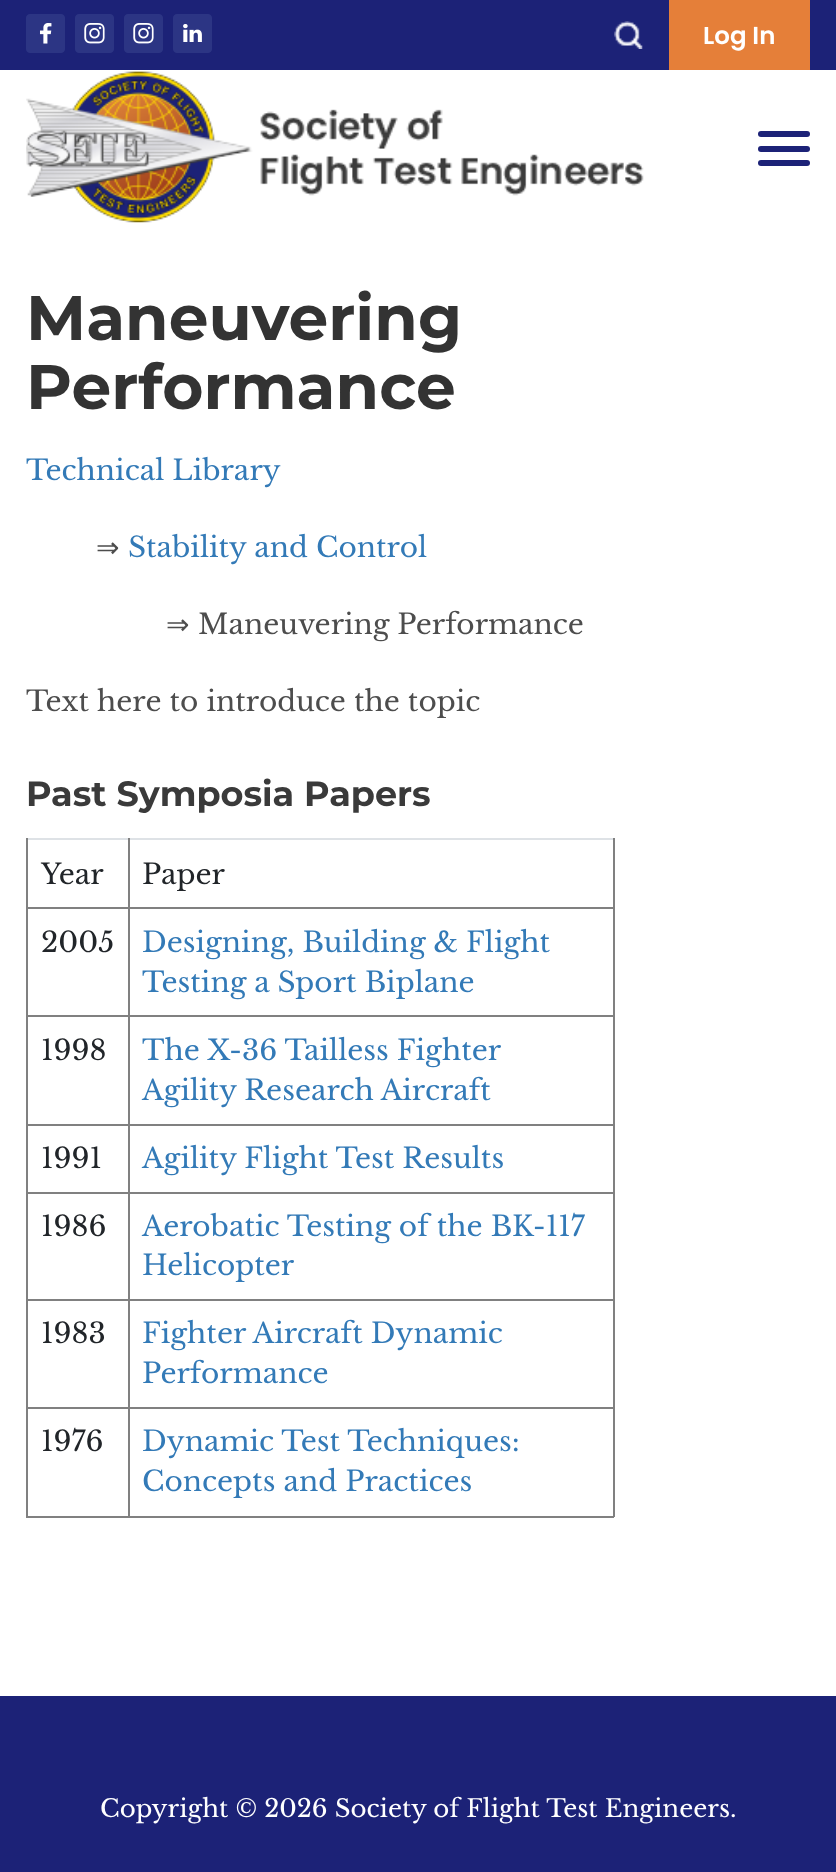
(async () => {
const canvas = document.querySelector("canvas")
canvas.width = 836
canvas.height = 1872
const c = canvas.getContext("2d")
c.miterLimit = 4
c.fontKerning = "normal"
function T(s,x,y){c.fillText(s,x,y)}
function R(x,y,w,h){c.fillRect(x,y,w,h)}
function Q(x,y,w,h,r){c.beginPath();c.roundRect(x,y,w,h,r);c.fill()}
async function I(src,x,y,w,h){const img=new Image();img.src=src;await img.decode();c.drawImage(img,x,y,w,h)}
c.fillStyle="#fff"
R(0,0,836,1872)
c.fillStyle="#1c2277"
R(0,0,836,70)
await I("1.png",26,14,39,39)
await I("2.png",75,14,39,39)
await I("2.png",124,14,39,39)
await I("3.png",173,14,39,39)
await I("4.png",614,21,29,28)
c.fillStyle="#e57f39"
R(669,0,141,70)
c.font="600 24.5px Poppins"
c.fillStyle="#fff"
T("Log In",703,44)
await I("5.png",26,71,618,152)
c.fillStyle="#1c2277"
Q(758,131,52,6,3)
Q(758,146,52,6,3)
Q(758,160,52,6,3)
c.font="100 63px Montserrat"
c.fillStyle="#333"
T("Maneuvering",26,340)
T("Performance",26,409)
c.font="28px Libre Baskerville"
c.fillStyle="#337ab7"
T("Technical Library",26,480)
c.font="28px DejaVu Sans"
c.fillStyle="#4d4d4d"
T("⇒",96,557)
c.font="28px Libre Baskerville"
c.fillStyle="#337ab7"
T("Stability and Control",128,557)
c.font="28px DejaVu Sans"
c.fillStyle="#4d4d4d"
T("⇒",166,634)
c.font="28px Libre Baskerville"
T("Maneuvering Performance",198,634)
T("Text here to introduce the topic",26,711)
c.font="100 35px Montserrat"
c.fillStyle="#3a3a3a"
T("Past Symposia Papers",26,806)
c.fillStyle="#808080"
R(26,1516,588,2)
c.fillStyle="#dee2e6"
R(26,838,588,2)
c.fillStyle="#808080"
R(613,907,2,610)
R(613,838,2,70)
R(128,1407,2,110)
R(128,1407,486,2)
R(128,1299,2,110)
R(128,1299,486,2)
R(128,1192,2,108)
R(128,1192,486,2)
R(128,1124,2,70)
R(128,1124,486,2)
R(128,1015,2,110)
R(128,1015,486,2)
R(128,907,2,110)
R(128,907,486,2)
R(128,838,2,70)
R(26,1407,2,110)
R(26,1407,104,2)
R(26,1299,2,110)
R(26,1299,104,2)
R(26,1192,2,108)
R(26,1192,104,2)
R(26,1124,2,70)
R(26,1124,104,2)
R(26,1015,2,110)
R(26,1015,104,2)
R(26,907,2,110)
R(26,907,104,2)
R(26,838,2,70)
c.font="28px Libre Baskerville"
c.fillStyle="#212529"
T("Year",41,884)
T("Paper",142,884)
T("2005",41,952)
c.fillStyle="#337ab7"
T("Designing, Building & Flight",142,952)
T("Testing a Sport Biplane",142,992)
c.fillStyle="#212529"
T("1998",41,1060)
c.fillStyle="#337ab7"
T("The X-36 Tailless Fighter",142,1060)
T("Agility Research Aircraft",142,1100)
c.fillStyle="#212529"
T("1991",41,1168)
c.fillStyle="#337ab7"
T("Agility Flight Test Results",142,1168)
c.fillStyle="#212529"
T("1986",41,1236)
c.fillStyle="#337ab7"
T("Aerobatic Testing of the BK-117",142,1236)
T("Helicopter",142,1275)
c.fillStyle="#212529"
T("1983",41,1343)
c.fillStyle="#337ab7"
T("Fighter Aircraft Dynamic",142,1343)
T("Performance",142,1383)
c.fillStyle="#212529"
T("1976",41,1451)
c.fillStyle="#337ab7"
T("Dynamic Test Techniques:",142,1451)
T("Concepts and Practices",142,1491)
c.fillStyle="#1c2277"
R(0,1696,836,176)
c.font="24.5px Libre Baskerville"
c.fillStyle="#fff"
T("Copyright © 2026 Society of Flight Test Engineers.",100,1817)
})()
